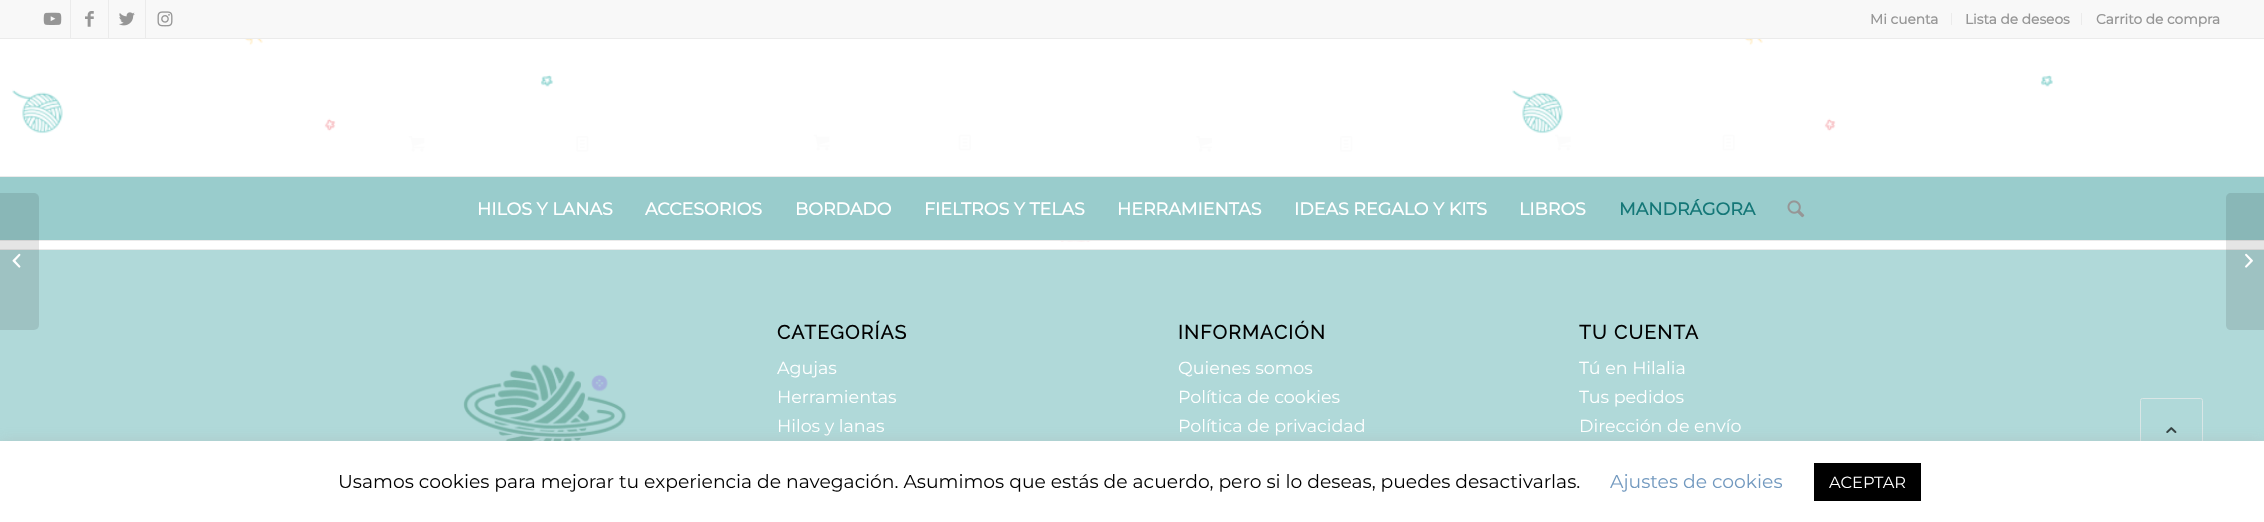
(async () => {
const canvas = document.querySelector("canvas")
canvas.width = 2264
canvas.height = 522
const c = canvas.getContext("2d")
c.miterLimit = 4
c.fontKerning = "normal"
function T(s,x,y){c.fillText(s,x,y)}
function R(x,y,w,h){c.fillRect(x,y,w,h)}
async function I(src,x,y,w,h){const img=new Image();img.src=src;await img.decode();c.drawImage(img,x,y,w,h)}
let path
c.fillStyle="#fff"
R(0,0,2264,522)
c.fillStyle="#f8f8f8"
R(0,0,2264,38)
c.fillStyle="#ebebeb"
R(0,38,2264,1)
R(70,0,1,38)
await I("1.png",43,12,19,13)
R(108,0,1,38)
await I("2.png",85,11,9,16)
R(145,0,1,38)
await I("3.png",119,12,16,14)
await I("4.png",157,11,16,16)
R(1951,13,1,12)
c.font="bold 13.75px Montserrat"
c.fillStyle="#969696"
T("Mi cuenta",1870,24)
c.fillStyle="#ebebeb"
R(2081,13,1,12)
c.fillStyle="#969696"
T("Lista de deseos",1965,24)
T("Carrito de compra",2096,24)
await I("9.png",408,136,17,16)
await I("10.png",576,136,13,16)
await I("11.png",813,134,17,17)
await I("12.png",958,134,13,17)
await I("13.png",1196,136,16,16)
await I("14.png",1340,136,13,16)
await I("15.png",1555,134,16,17)
await I("16.png",1722,134,13,17)
await I("5.png",12,39,2041,203)
c.fillStyle="#ebebeb"
R(0,240,2264,1)
c.fillStyle="#9cc"
R(0,177,2264,63)
c.fillStyle="#ebebeb"
R(0,176,2264,1)
c.font="bold 17.5px Montserrat"
c.fillStyle="#fff"
T("HILOS Y LANAS",477,215)
T("ACCESORIOS",645,215)
T("BORDADO",795,215)
T("FIELTROS Y TELAS",924,215)
T("HERRAMIENTAS",1117,215)
T("IDEAS REGALO Y KITS",1294,215)
T("LIBROS",1519,215)
c.fillStyle="#147777"
T("MANDRÁGORA",1619,215)
await I("6.png",1787,200,18,18)
c.fillStyle="#b0d9d9"
R(0,250,2264,191)
c.fillStyle="#ebebeb"
R(0,249,2264,1)
c.fillStyle="#0000001a"
c.beginPath()
c.roundRect(0,193,39,137,[0,5,5,0])
c.fill()
await I("7.png",12,253,9,15)
path = new Path2D("M2231 193h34v137h-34c-3 0-5-2-5-5v-127c0-3 2-5 5-5z")
c.fill(path)
await I("8.png",2245,253,8,15)
await I("17.png",463,364,164,77)
c.letterSpacing="1.25px"
c.font="bold 19.25px Raleway"
c.fillStyle="#000"
T("CATEGORÍAS",777,339)
c.letterSpacing="0px"
c.font="100 17.5px Montserrat"
c.fillStyle="#fff"
T("Agujas",777,374)
T("Herramientas",777,403)
T("Hilos y lanas",777,432)
c.letterSpacing="1.25px"
c.font="bold 19.25px Raleway"
c.fillStyle="#000"
T("INFORMACIÓN",1178,339)
c.letterSpacing="0px"
c.font="100 17.5px Montserrat"
c.fillStyle="#fff"
T("Quienes somos",1178,374)
T("Política de cookies",1178,403)
T("Política de privacidad",1178,432)
c.letterSpacing="1.25px"
c.font="bold 19.25px Raleway"
c.fillStyle="#000"
T("TU CUENTA",1579,339)
c.letterSpacing="0px"
c.font="100 17.5px Montserrat"
c.fillStyle="#fff"
T("Tú en Hilalia",1579,374)
T("Tus pedidos",1579,403)
T("Dirección de envío",1579,432)
c.beginPath()
c.roundRect(2140.5,398.5,62,61,2)
c.strokeStyle="#d9e6e6"
c.stroke()
await I("18.png",2166,427,11,6)
c.fillStyle="#acabab4d"
c.filter="blur(6px)"
c.beginPath()
c.rect(0,440,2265,81)
c.fill()
c.filter="none"
c.fillStyle="#fff"
R(0,441,2264,81)
c.font="100 18.75px Montserrat"
c.fillStyle="#000"
T("Usamos cookies para mejorar tu experiencia de navegación. Asumimos que estás de acuerdo, pero si lo deseas, puedes desactivarlas.",338,488)
c.fillStyle="#7299bf"
T("Ajustes de cookies",1610,488)
c.fillStyle="#000"
R(1814,463,107,38)
c.font="100 16.25px Montserrat"
c.fillStyle="#fff"
T("ACEPTAR",1829,488)
})()
